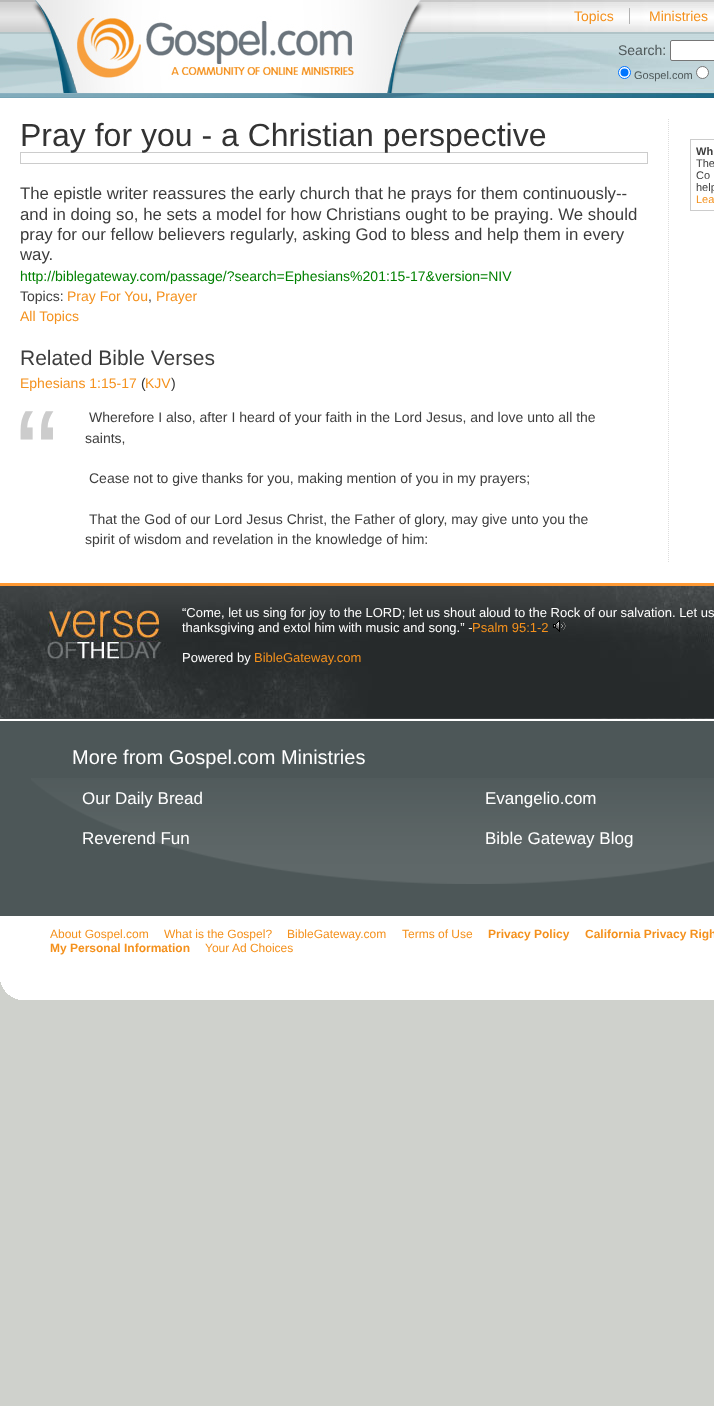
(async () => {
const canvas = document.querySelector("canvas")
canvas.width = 714
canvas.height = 1406
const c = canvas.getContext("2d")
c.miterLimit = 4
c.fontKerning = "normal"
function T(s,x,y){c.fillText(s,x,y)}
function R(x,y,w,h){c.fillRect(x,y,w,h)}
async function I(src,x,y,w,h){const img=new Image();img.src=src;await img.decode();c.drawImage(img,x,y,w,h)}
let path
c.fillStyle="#cfd1cc"
R(0,0,714,1406)
await I("1.png",0,0,714,98)
c.font="14px Liberation Sans"
c.fillStyle="#f4911d"
T("Topics",574,21)
c.fillStyle="#b2b2b2"
R(629,8,1,16)
c.fillStyle="#f4911d"
T("Ministries",649,21)
c.fillStyle="#4d5758"
T("Search:",618,55)
c.fillStyle="#fff"
c.beginPath()
c.roundRect(670.5,40.5,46,20,1.5)
c.fill()
c.strokeStyle="#767676"
c.stroke()
c.beginPath()
c.arc(624.5,72.5,6,0,7)
c.fill()
c.strokeStyle="#0075ff"
c.stroke()
c.fillStyle="#0075ff"
c.beginPath()
c.arc(624.5,72.5,4,0,7)
c.fill()
c.font="11px Liberation Sans"
c.fillStyle="#4d5758"
T("Gospel.com",634,79)
c.fillStyle="#fff"
c.beginPath()
c.arc(702.5,72.5,6,0,7)
c.fill()
c.strokeStyle="#767676"
c.stroke()
R(0,98,714,485)
path = new Path2D("M668.5 119v444")
c.strokeStyle="#ddd"
c.setLineDash([1,1])
c.stroke(path)
c.strokeStyle="#ccc"
c.setLineDash([])
c.strokeRect(20.5,152.5,627,11)
c.font="32px Liberation Sans"
c.fillStyle="#333"
T("Pray for you - a Christian perspective",20,146)
c.font="16.8px Liberation Sans"
c.fillStyle="#3d3d3d"
T("The epistle writer reassures the early church that he prays for them continuously--",20,199)
T("and in doing so, he sets a model for how Christians ought to be praying. We should",20,220)
T("pray for our fellow believers regularly, asking God to bless and help them in every",20,240)
T("way.",20,260)
c.font="14px Liberation Sans"
c.fillStyle="#008000"
T("http://biblegateway.com/passage/?search=Ephesians%201:15-17&version=NIV",20,281)
c.fillStyle="#3d3d3d"
T("Topics:",20,301)
c.fillStyle="#f4911d"
T("Pray For You",67,301)
c.fillStyle="#3d3d3d"
T(",",148,301)
c.fillStyle="#f4911d"
T("Prayer",156,301)
T("All Topics",20,321)
c.font="21px Liberation Sans"
c.fillStyle="#3d3d3d"
T("Related Bible Verses",20,365)
c.font="14px Liberation Sans"
c.fillStyle="#f4911d"
T("Ephesians 1:15-17",20,388)
c.fillStyle="#333"
T("(",141,388)
c.fillStyle="#f4911d"
T("KJV",145,388)
c.fillStyle="#333"
T(")",171,388)
c.font="126px Liberation Sans"
c.fillStyle="#ccc"
T("“",16,498)
c.font="14px Liberation Sans"
c.fillStyle="#3d3d3d"
T("Wherefore I also, after I heard of your faith in the Lord Jesus, and love unto all the",89,422)
T("saints,",85,443)
T("Cease not to give thanks for you, making mention of you in my prayers;",89,483)
T("That the God of our Lord Jesus Christ, the Father of glory, may give unto you the",89,524)
T("spirit of wisdom and revelation in the knowledge of him:",85,544)
c.strokeRect(690.5,139.5,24,71)
c.font="bold 11px Liberation Sans"
T("Wh",696,155)
c.font="11px Liberation Sans"
T("The",696,167)
T("Co",696,179)
T("help",696,191)
c.fillStyle="#f4911d"
T("Lea",696,203)
c.fillStyle="#f93"
R(0,583,714,3)
await I("2.png",0,586,714,133)
c.font="13px Liberation Sans"
c.fillStyle="#fff"
T("“Come, let us sing for joy to the LORD; let us shout aloud to the Rock of our salvation. Let us",182,617)
T("thanksgiving and extol him with music and song.” -",182,632)
c.fillStyle="#f4911d"
T("Psalm 95:1-2",472,632)
await I("3.png",553,620,13,12)
c.fillStyle="#fff"
T("Powered by",182,662)
c.fillStyle="#f4911d"
T("BibleGateway.com",254,662)
c.fillStyle="#fff"
R(0,719,714,2)
c.fillStyle="#4d5758"
R(0,721,714,195)
await I("4.png",31,778,683,106)
c.font="20px Liberation Sans"
c.fillStyle="#fff"
T("More from Gospel.com Ministries",72,764)
c.font="17px Liberation Sans"
T("Our Daily Bread",82,804)
T("Evangelio.com",485,804)
T("Reverend Fun",82,844)
T("Bible Gateway Blog",485,844)
await I("5.png",0,916,714,84)
c.font="12px Liberation Sans"
c.fillStyle="#f4911d"
T("About Gospel.com",50,938)
T("What is the Gospel?",164,938)
T("BibleGateway.com",287,938)
T("Terms of Use",402,938)
c.font="bold 12px Liberation Sans"
T("Privacy Policy",488,938)
T("California Privacy Righ",585,938)
T("My Personal Information",50,952)
c.font="12px Liberation Sans"
T("Your Ad Choices",205,952)
})()
